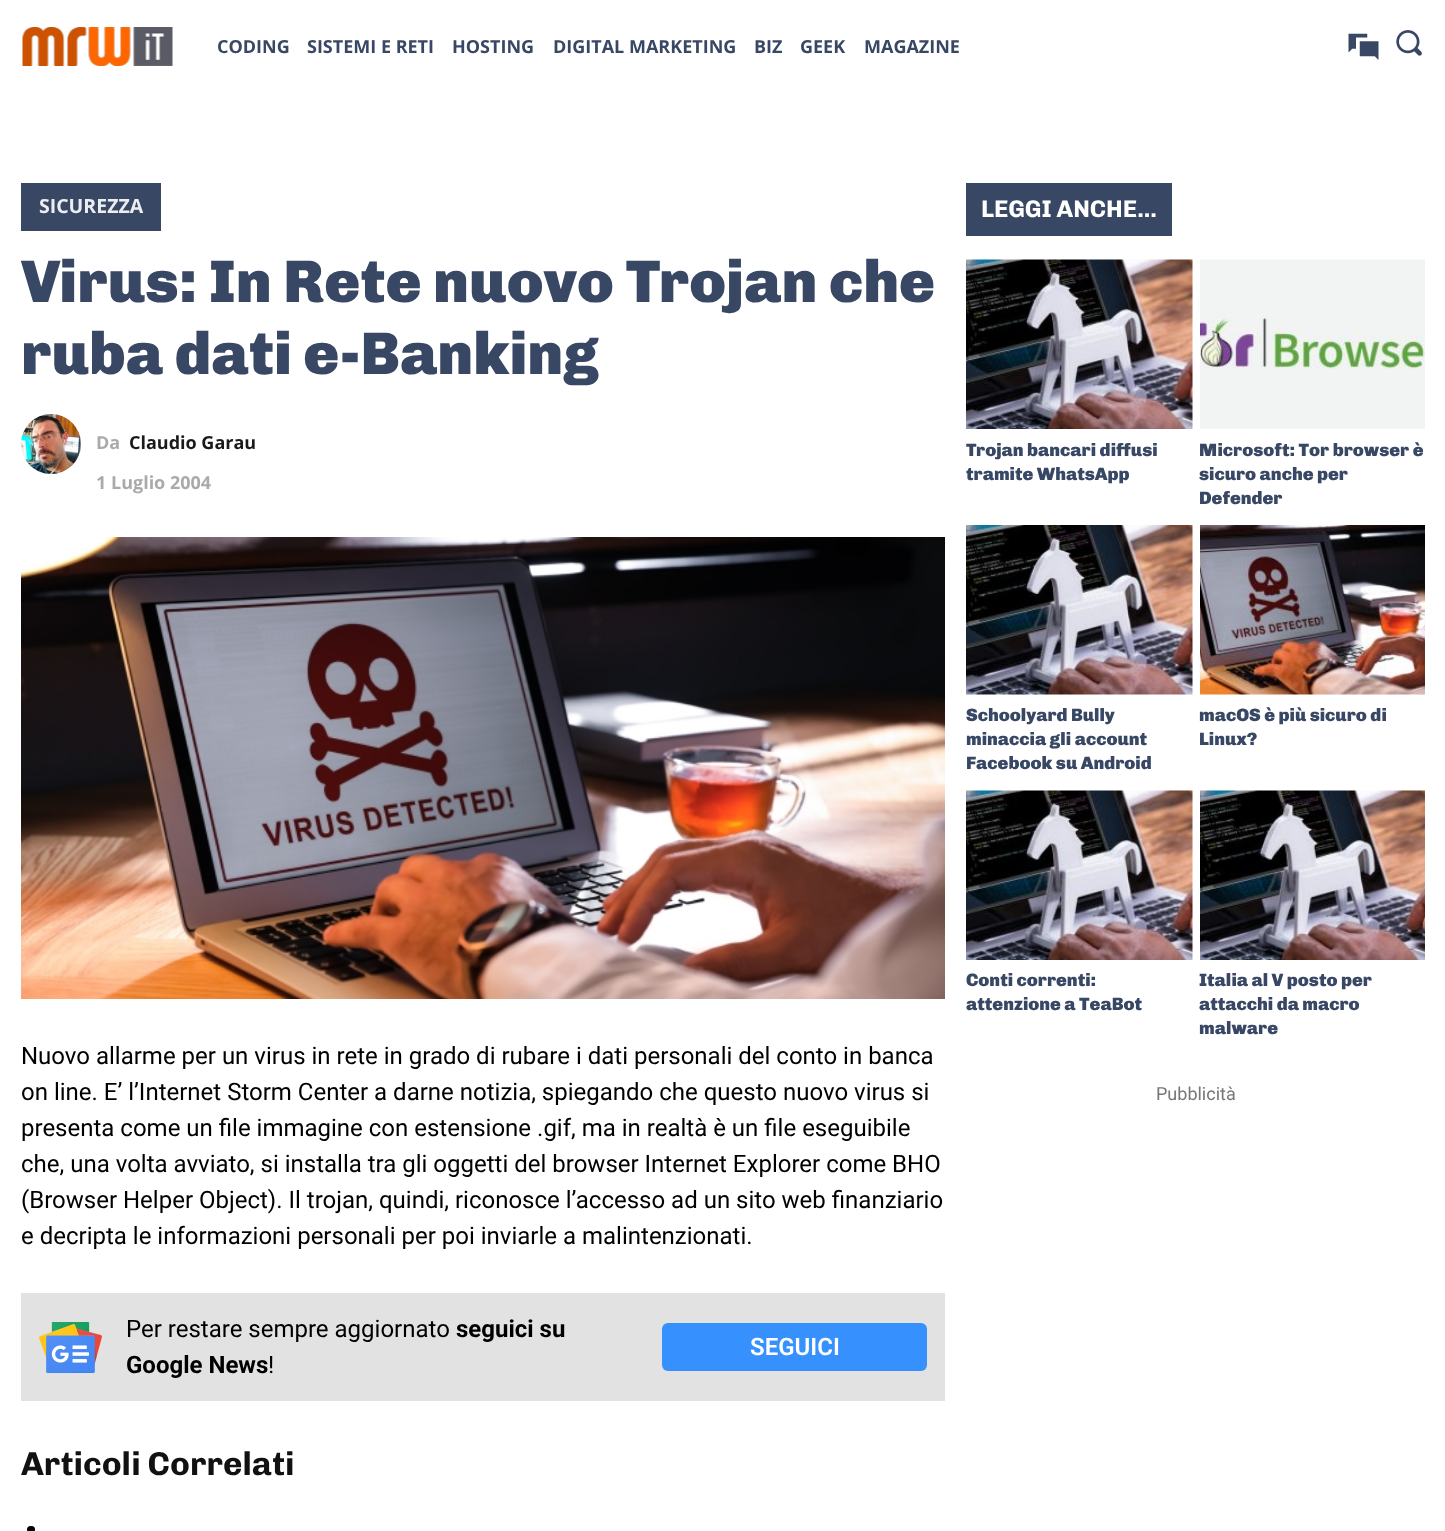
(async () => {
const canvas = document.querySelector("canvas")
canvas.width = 1445
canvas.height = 1531
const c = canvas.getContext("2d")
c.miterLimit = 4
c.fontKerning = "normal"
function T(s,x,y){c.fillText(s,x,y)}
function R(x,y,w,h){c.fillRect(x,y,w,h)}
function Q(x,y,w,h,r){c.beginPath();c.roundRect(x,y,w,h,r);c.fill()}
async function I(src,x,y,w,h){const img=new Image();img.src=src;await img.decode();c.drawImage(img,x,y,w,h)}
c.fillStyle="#fff"
R(0,0,1445,1531)
await I("1.png",22,27,151,39)
c.font="bold 18px Open Sans"
c.fillStyle="#384764"
T("CODING",217,53)
T("SISTEMI E RETI",307,53)
T("HOSTING",452,53)
T("DIGITAL MARKETING",553,53)
T("BIZ",754,53)
T("GEEK",800,53)
T("MAGAZINE",864,53)
await I("2.png",1348,33,31,27)
await I("3.png",1396,30,26,26)
R(21,183,140,48)
c.font="bold 19.5px Open Sans"
c.fillStyle="#ebedf0"
T("SICUREZZA",39,213)
c.font="900 60px Chivo"
c.fillStyle="#384764"
T("Virus: In Rete nuovo Trojan che",21,302)
T("ruba dati e-Banking",21,374)
await I("4.png",21,414,60,60)
c.font="bold 18px Open Sans"
c.fillStyle="#aaa"
T("Da",96,449)
c.fillStyle="#1a1a1a"
T("Claudio Garau",129,449)
c.fillStyle="#aaa"
T("1 Luglio 2004",96,489)
await I("5.png",21,537,924,462)
c.font="24px Roboto"
c.fillStyle="#000"
T("Nuovo allarme per un virus in rete in grado di rubare i dati personali del conto in banca",21,1064)
T("on line. E’ l’Internet Storm Center a darne notizia, spiegando che questo nuovo virus si",21,1100)
T("presenta come un file immagine con estensione .gif, ma in realtà è un file eseguibile",21,1136)
T("che, una volta avviato, si installa tra gli oggetti del browser Internet Explorer come BHO",21,1172)
T("(Browser Helper Object). Il trojan, quindi, riconosce l’accesso ad un sito web finanziario",21,1208)
T("e decripta le informazioni personali per poi inviarle a malintenzionati.",21,1244)
c.fillStyle="#e2e2e2"
R(21,1293,924,108)
await I("6.png",39,1322,63,51)
c.fillStyle="#000"
T("Per restare sempre aggiornato",126,1337)
c.font="bold 24px Roboto"
T("seguici su",456,1337)
T("Google News",126,1373)
c.font="24px Roboto"
T("!",268,1373)
c.fillStyle="#3690fe"
Q(662,1323,265,48,6)
c.font="600 24px Roboto"
c.fillStyle="#fff"
T("SEGUICI",750,1355)
c.font="bold 33px Chivo"
c.fillStyle="#111"
T("Articoli Correlati",21,1475)
c.fillStyle="#000"
Q(27,1526,8,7,3.5)
c.fillStyle="#384764"
R(966,183,206,53)
c.font="bold 24px Chivo"
c.fillStyle="#fff"
T("LEGGI ANCHE...",981,217)
await I("7.png",966,259,227,170)
c.font="900 18px Chivo"
c.fillStyle="#384764"
T("Trojan bancari diffusi",966,456)
T("tramite WhatsApp",966,480)
await I("8.png",1200,259,225,170)
T("Microsoft: Tor browser è",1199,456)
T("sicuro anche per",1199,480)
T("Defender",1199,504)
await I("9.png",966,525,227,170)
T("Schoolyard Bully",966,721)
T("minaccia gli account",966,745)
T("Facebook su Android",966,769)
await I("10.png",1200,525,225,170)
T("macOS è più sicuro di",1199,721)
T("Linux?",1199,745)
await I("7.png",966,790,227,170)
T("Conti correnti:",966,986)
T("attenzione a TeaBot",966,1010)
await I("11.png",1200,790,225,170)
T("Italia al V posto per",1199,986)
T("attacchi da macro",1199,1010)
T("malware",1199,1034)
c.font="18px Roboto"
c.fillStyle="#767676"
T("Pubblicità",1156,1100)
})()
